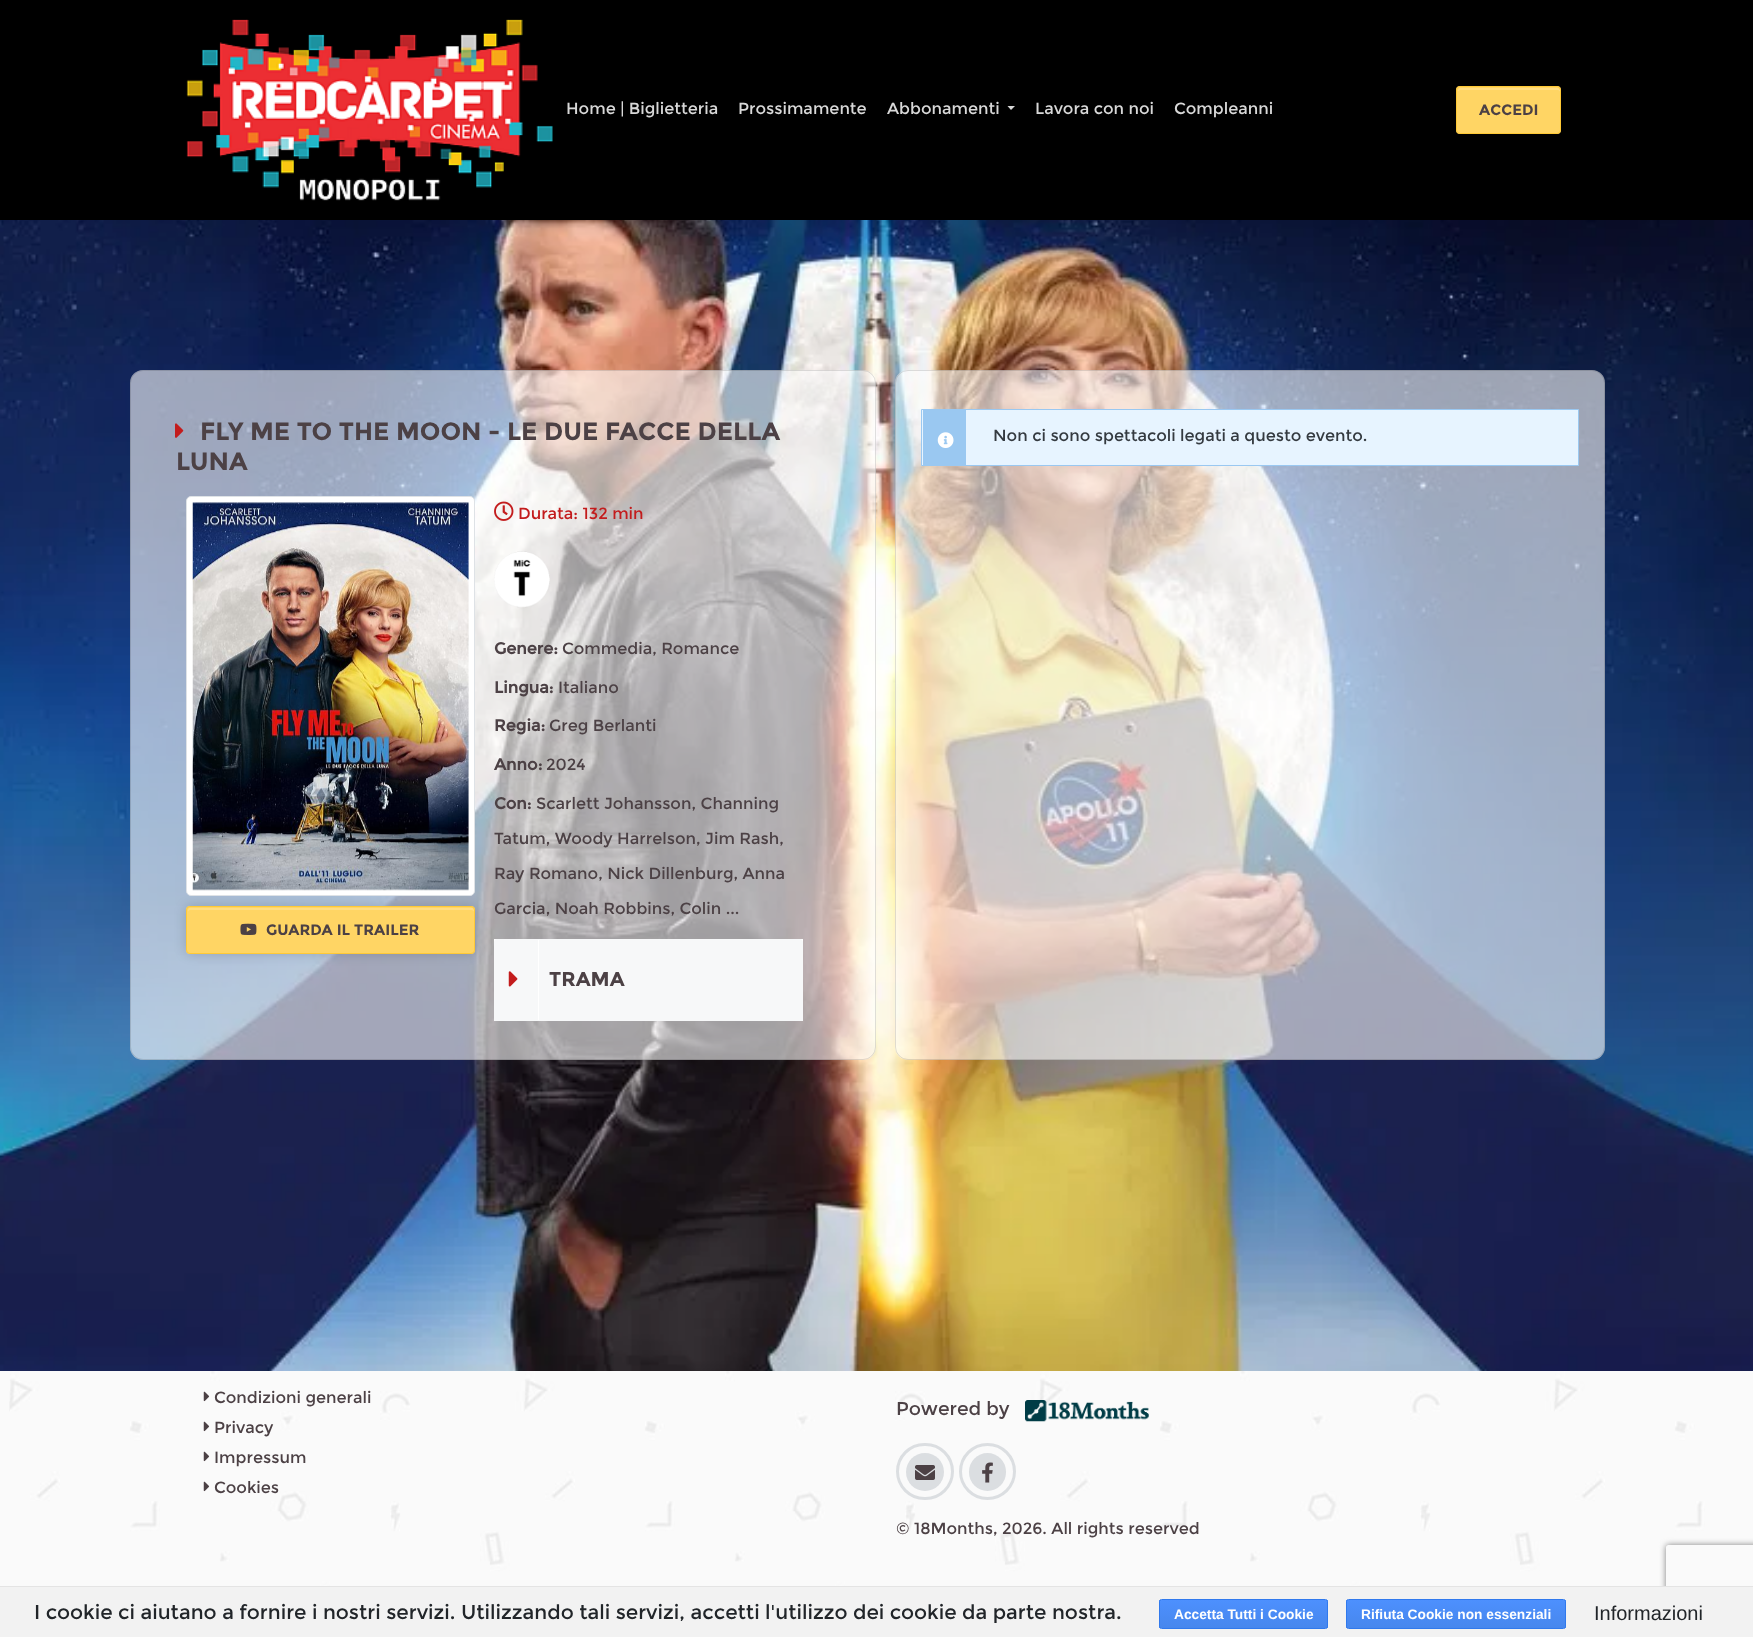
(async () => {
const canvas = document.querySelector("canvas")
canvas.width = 1753
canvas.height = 1637
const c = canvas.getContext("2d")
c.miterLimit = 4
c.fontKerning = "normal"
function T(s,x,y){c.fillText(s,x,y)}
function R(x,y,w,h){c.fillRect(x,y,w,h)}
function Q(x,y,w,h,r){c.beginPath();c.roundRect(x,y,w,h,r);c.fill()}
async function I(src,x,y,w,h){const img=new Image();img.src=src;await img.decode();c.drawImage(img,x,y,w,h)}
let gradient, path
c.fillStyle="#fff"
R(0,0,1753,1637)
c.fillStyle="#000"
R(0,0,1753,220)
await I("1.png",186,19,367,182)
c.font="16.25px Montserrat"
c.fillStyle="#d8d8d8"
T("Home | Biglietteria",566,114)
T("Prossimamente",738,114)
T("Abbonamenti",887,114)
path = new Path2D("M1007.5 106h7.5l-4 4z")
c.fill(path)
T("Lavora con noi",1035,114)
T("Compleanni",1174,114)
c.fillStyle="#ffd564"
Q(1456,86,105,48,4)
c.fillStyle="#ffdd83"
path = new Path2D("M1460 90h98c1 0 2 1 2 2v-2c0-1-1-2-2-2h-98c-1 0-2 1-2 2v2c0-1 1-2 2-2z")
c.fill(path)
c.beginPath()
c.roundRect(1456.5,86.5,104,47,3.5)
c.strokeStyle="#ffc936"
c.stroke()
c.font="bold 15px Montserrat"
c.fillStyle="#4c4145"
T("ACCEDI",1479,115)
await I("2.png",0,220,1753,1151)
c.fillStyle="#ffffff99"
Q(130,370,746,690,13)
c.beginPath()
c.roundRect(130.5,370.5,745,689,12.5)
c.strokeStyle="#0000001f"
c.stroke()
await I("3.png",175,423,9,15)
c.font="bold 25px Montserrat"
c.fillStyle="#4c4145"
T("FLY ME TO THE MOON - LE DUE FACCE DELLA",200,440)
T("LUNA",176,470)
c.fillStyle="#00000029"
c.filter="blur(6px)"
c.beginPath()
c.roundRect(186,906,289,48,4)
c.fill()
c.filter="none"
c.fillStyle="#fff"
c.beginPath()
c.roundRect(186.5,496.5,288,399,4.5)
c.fill()
c.strokeStyle="#dee2e6"
c.stroke()
await I("4.png",192,502,277,389)
c.fillStyle="#ffd564"
Q(186,906,289,48,4)
c.fillStyle="#ffdd83"
path = new Path2D("M190 910h281c2 0 3 1 3 2c0-2 0-4-2-4h-282c-2 0-2 2-2 4c0-1 1-2 2-2z")
c.fill(path)
c.beginPath()
c.roundRect(186.5,906.5,288,47,3.5)
c.strokeStyle="#ffc936"
c.stroke()
await I("5.png",240,923,17,12)
c.font="bold 15px Montserrat"
c.fillStyle="#4c4145"
T("GUARDA IL TRAILER",266,935)
await I("6.png",494,501,20,20)
c.font="16.25px Montserrat"
c.fillStyle="#c31c1d"
T("Durata: 132 min",518,519)
await I("7.png",494,551,56,57)
c.font="bold 16.25px 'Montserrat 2'"
c.fillStyle="#4c4145"
T("Genere:",494,654)
c.font="16.25px Montserrat"
T("Commedia, Romance",562,654)
c.font="bold 16.25px 'Montserrat 2'"
T("Lingua:",494,693)
c.font="16.25px Montserrat"
T("Italiano",558,693)
c.font="bold 16.25px 'Montserrat 2'"
T("Regia:",494,731)
c.font="16.25px Montserrat"
T("Greg Berlanti",549,731)
c.font="bold 16.25px 'Montserrat 2'"
T("Anno:",494,770)
c.font="16.25px Montserrat"
T("2024",546,770)
c.font="bold 16.25px 'Montserrat 2'"
T("Con:",494,809)
c.font="16.25px Montserrat"
T("Scarlett Johansson, Channing",536,809)
T("Tatum, Woody Harrelson, Jim Rash,",494,844)
T("Ray Romano, Nick Dillenburg, Anna",494,879)
T("Garcia, Noah Robbins, Colin ...",494,914)
c.fillStyle="#fff"
R(494,939,309,4)
c.fillStyle="#f7f8f9"
c.beginPath()
c.roundRect(494,939,309,82,[4,4,0,0])
c.fill()
c.fillStyle="#fff"
R(538,940,1,80)
await I("8.png",508,971,10,16)
c.font="bold 20px Montserrat"
c.fillStyle="#4c4145"
T("TRAMA",549,986)
c.fillStyle="#ffffff99"
Q(895,370,710,690,13)
c.beginPath()
c.roundRect(895.5,370.5,709,689,12.5)
c.strokeStyle="#0000001f"
c.stroke()
c.fillStyle="#e7f4ff"
c.beginPath()
c.rect(921.5,409.5,657,56)
c.fill()
c.strokeStyle="#9ac8f1"
c.stroke()
c.fillStyle="#9ac8f1"
R(923,410,43,55)
await I("9.png",937,432,17,16)
c.font="16.25px Montserrat"
c.fillStyle="#343a40"
T("Non ci sono spettacoli legati a questo evento.",993,441)
c.fillStyle="#fafafa"
R(0,1371,1753,215)
await I("10.png",9,1371,1744,215)
await I("11.png",203,1391,7,11)
c.fillStyle="#4c4145"
T("Condizioni generali",214,1403)
await I("11.png",203,1421,7,11)
T("Privacy",214,1433)
await I("11.png",203,1451,7,11)
T("Impressum",214,1463)
await I("11.png",203,1481,7,11)
T("Cookies",214,1493)
c.font="18.75px Montserrat"
T("Powered by",896,1415)
await I("12.png",1025,1400,124,22)
c.fillStyle="#dbdee1"
c.beginPath()
c.arc(925,1472,19,0,7)
c.fill()
await I("13.png",915,1465,20,15)
c.beginPath()
c.roundRect(897.5,1444.5,55,54,27)
c.strokeStyle="#dbdee1"
c.lineWidth=3
c.stroke()
Q(969,1453,37,38,18.5)
await I("14.png",982,1462,11,21)
c.beginPath()
c.arc(987.5,1471.5,27,0,7)
c.stroke()
c.font="16.25px Montserrat"
c.fillStyle="#4c4145"
T("© 18Months, 2026. All rights reserved",896,1534)
c.save()
path = new Path2D("M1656 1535h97v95h-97zm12.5 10h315c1.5 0 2.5 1 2.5 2.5v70c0 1.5-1 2.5-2.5 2.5h-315c-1.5 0-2.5-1-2.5-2.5v-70c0-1.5 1-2.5 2.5-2.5z")
c.clip(path,"evenodd")
c.fillStyle="#808080"
c.filter="blur(3px)"
c.beginPath()
c.roundRect(1666,1545,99,75,2.5)
c.fill()
c.filter="none"
c.restore()
c.fillStyle="#f2f2f2"
R(0,1587,1753,50)
c.fillStyle="#e4e4e4"
R(0,1586,1753,1)
c.font="20px Montserrat"
c.fillStyle="#212529"
T("I cookie ci aiutano a fornire i nostri servizi. Utilizzando tali servizi, accetti l'utilizzo dei cookie da parte nostra.",34,1619)
c.save()
c.beginPath()
c.roundRect(1159,1599,169,30,2.5)
c.clip()
gradient = c.createLinearGradient(1243,1600,1243,1628)
gradient.addColorStop(0,"#4d90fe")
gradient.addColorStop(1,"#4787ed")
c.fillStyle = gradient
R(1159,1600,169,28)
c.restore()
c.beginPath()
c.roundRect(1159.5,1599.5,168,29,2)
c.strokeStyle="#3079ed"
c.lineWidth=1
c.stroke()
c.font="bold 13.75px Liberation Sans"
c.fillStyle="#fff"
T("Accetta Tutti i Cookie",1174,1619)
c.save()
c.beginPath()
c.roundRect(1346,1599,220,30,2.5)
c.clip()
gradient = c.createLinearGradient(1456,1600,1456,1628)
gradient.addColorStop(0,"#4d90fe")
gradient.addColorStop(1,"#4787ed")
c.fillStyle = gradient
R(1346,1600,220,28)
c.restore()
c.beginPath()
c.roundRect(1346.5,1599.5,219,29,2)
c.stroke()
T("Rifiuta Cookie non essenziali",1361,1619)
c.font="20px Liberation Sans"
c.fillStyle="#212529"
T("Informazioni",1594,1620)
})()
